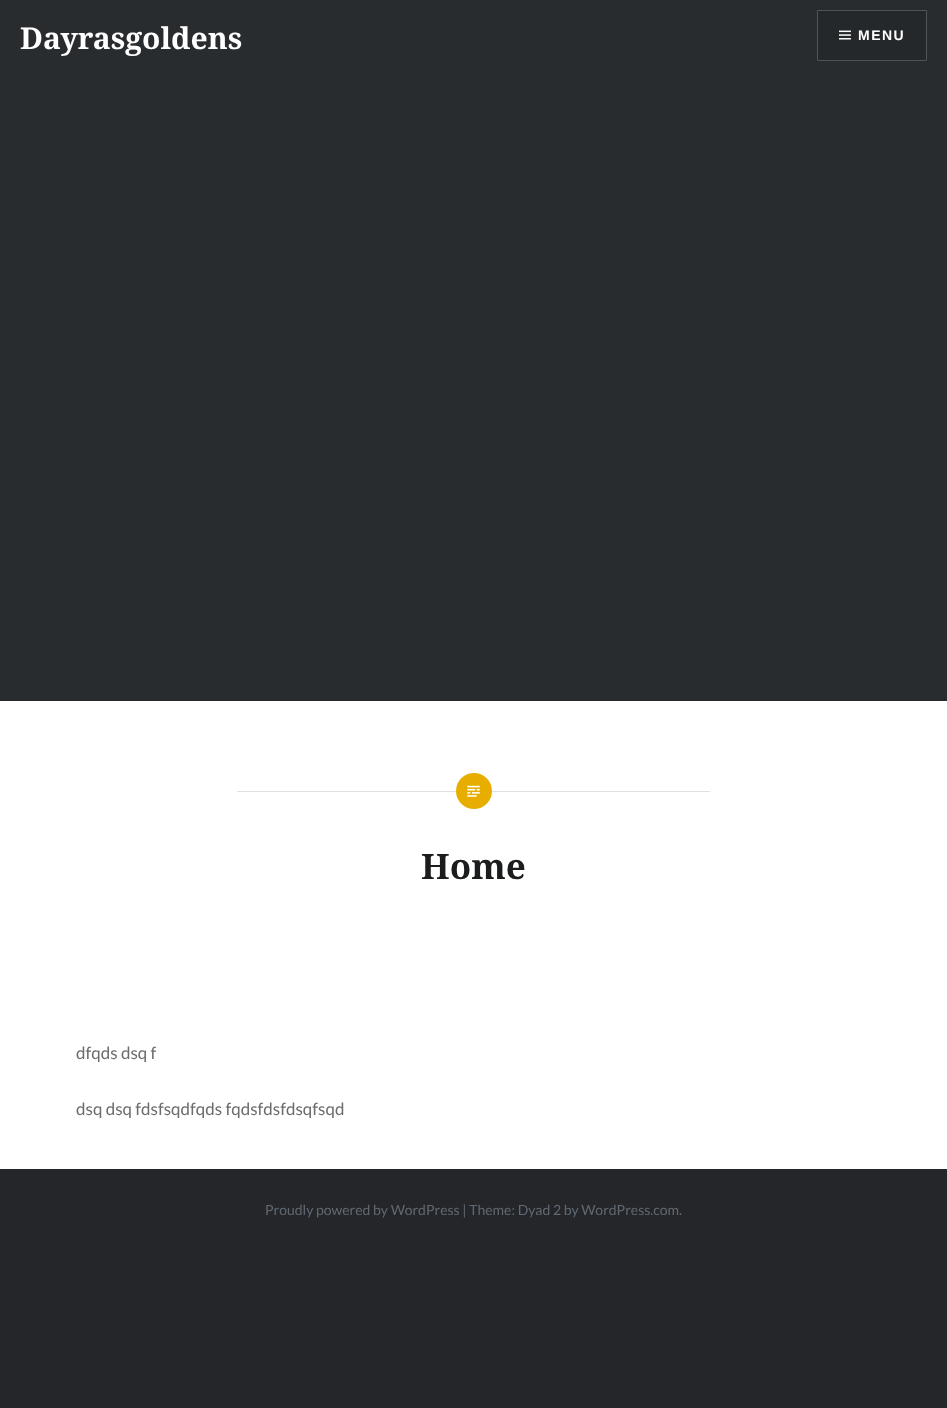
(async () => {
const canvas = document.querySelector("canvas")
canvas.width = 947
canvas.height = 1408
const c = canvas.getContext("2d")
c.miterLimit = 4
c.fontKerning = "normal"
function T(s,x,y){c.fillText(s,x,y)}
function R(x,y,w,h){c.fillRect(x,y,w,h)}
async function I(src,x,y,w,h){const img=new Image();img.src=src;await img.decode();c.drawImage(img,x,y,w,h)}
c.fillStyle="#242629"
R(0,0,947,1408)
c.fillStyle="#292c2f"
R(0,0,947,701)
c.font="bold 30px Noto Serif"
c.fillStyle="#fff"
T("Dayrasgoldens",20,49)
c.fillStyle="#25282a"
c.beginPath()
c.rect(817.5,10.5,109,50)
c.fill()
c.strokeStyle="#515355"
c.stroke()
await I("1.png",839,30,12,10)
c.letterSpacing="1.5px"
c.font="bold 14px Liberation Sans"
c.fillStyle="#fff"
T("MENU",858,40)
R(0,701,947,468)
c.fillStyle="#e0e0e0"
R(237,791,473,1)
c.fillStyle="#e7ae01"
c.beginPath()
c.arc(474,791,18,0,7)
c.fill()
await I("2.png",467,785,13,12)
c.letterSpacing="0px"
c.font="bold 35px Noto Serif"
c.fillStyle="#1a1c1e"
T("Home",421,879)
c.font="17px Lato"
c.fillStyle="#6a6c6e"
T("dfqds dsq f",76,1059)
T("dsq dsq fdsfsqdfqds fqdsfdsfdsqfsqd",76,1115)
c.font="14px Lato"
c.fillStyle="#616a74"
T("Proudly powered by WordPress | Theme: Dyad 2 by WordPress.com.",265,1215)
})()
